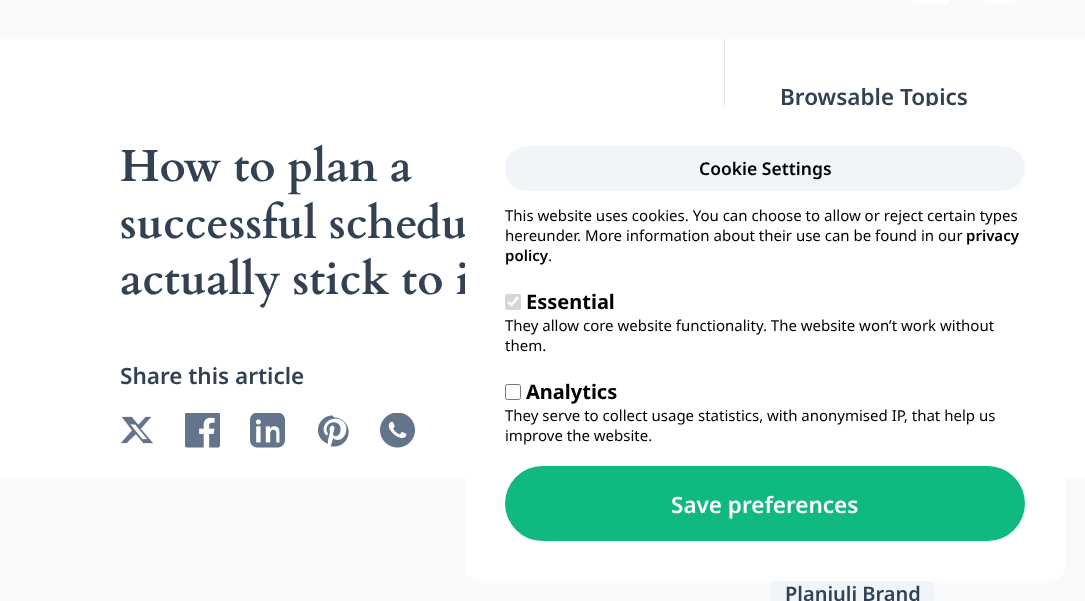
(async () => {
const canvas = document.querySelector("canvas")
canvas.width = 1085
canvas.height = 601
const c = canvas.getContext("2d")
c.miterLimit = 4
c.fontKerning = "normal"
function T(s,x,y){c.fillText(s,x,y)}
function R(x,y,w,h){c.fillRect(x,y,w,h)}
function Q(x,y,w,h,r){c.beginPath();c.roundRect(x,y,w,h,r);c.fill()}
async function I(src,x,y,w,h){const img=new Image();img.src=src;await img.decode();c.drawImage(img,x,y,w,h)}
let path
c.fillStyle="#fff"
R(0,0,1085,601)
c.fillStyle="#f8fafc"
R(0,0,1085,39)
c.fillStyle="#fff"
Q(905,-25,50,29,25)
Q(975,-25,50,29,25)
c.font="bold 45px Cardo"
c.fillStyle="#334155"
T("How to plan a",120,181)
T("successful schedu",120,238)
T("actually stick to i",120,294)
c.font="600 22.5px Noto Sans"
T("Share this article",120,384)
await I("1.png",120,416,33,28)
await I("2.png",185,413,35,35)
await I("3.png",250,413,35,35)
await I("4.png",317,415,32,32)
await I("5.png",380,413,35,35)
c.fillStyle="#e5e7eb"
R(724,39,1,67)
c.fillStyle="#334155"
T("Browsable Topics",780,105)
c.fillStyle="#f8fafc"
R(0,478,1085,123)
c.fillStyle="#f1f5f9"
Q(770,569,165,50,25)
c.font="600 20px Noto Sans"
c.fillStyle="#334155"
T("Planjuli Brand",785,601)
c.fillStyle="#fff"
Q(465,106,600,475,15)
c.fillStyle="#f1f5f9"
Q(505,146,520,45,22.5)
c.font="600 17.5px Noto Sans"
c.fillStyle="#000"
T("Cookie Settings",699,175)
c.font="15px Noto Sans"
T("This website uses cookies. You can choose to allow or reject certain types",505,221)
T("hereunder. More information about their use can be found in our",505,241)
c.font="600 15px Noto Sans"
T("privacy",966,241)
T("policy",505,261)
c.font="15px Noto Sans"
T(".",548,261)
c.fillStyle="#d6d6d6"
Q(505,294,16,16,2.5)
path = new Path2D("M508 302l3.5 3l6.5-8")
c.strokeStyle="#fff"
c.lineWidth=2.6
c.stroke(path)
c.font="bold 20px Noto Sans"
c.fillStyle="#000"
T("Essential",526,309)
c.font="15px Noto Sans"
T("They allow core website functionality. The website won’t work without",505,331)
T("them.",505,351)
c.beginPath()
c.roundRect(505.5,384.5,15,15,2)
c.strokeStyle="#767676"
c.lineWidth=1
c.stroke()
c.font="bold 20px Noto Sans"
T("Analytics",526,399)
c.font="15px Noto Sans"
T("They serve to collect usage statistics, with anonymised IP, that help us",505,421)
T("improve the website.",505,441)
c.fillStyle="#10b981"
Q(505,466,520,75,37.5)
c.font="600 22.5px Noto Sans"
c.fillStyle="#fff"
T("Save preferences",671,513)
})()
